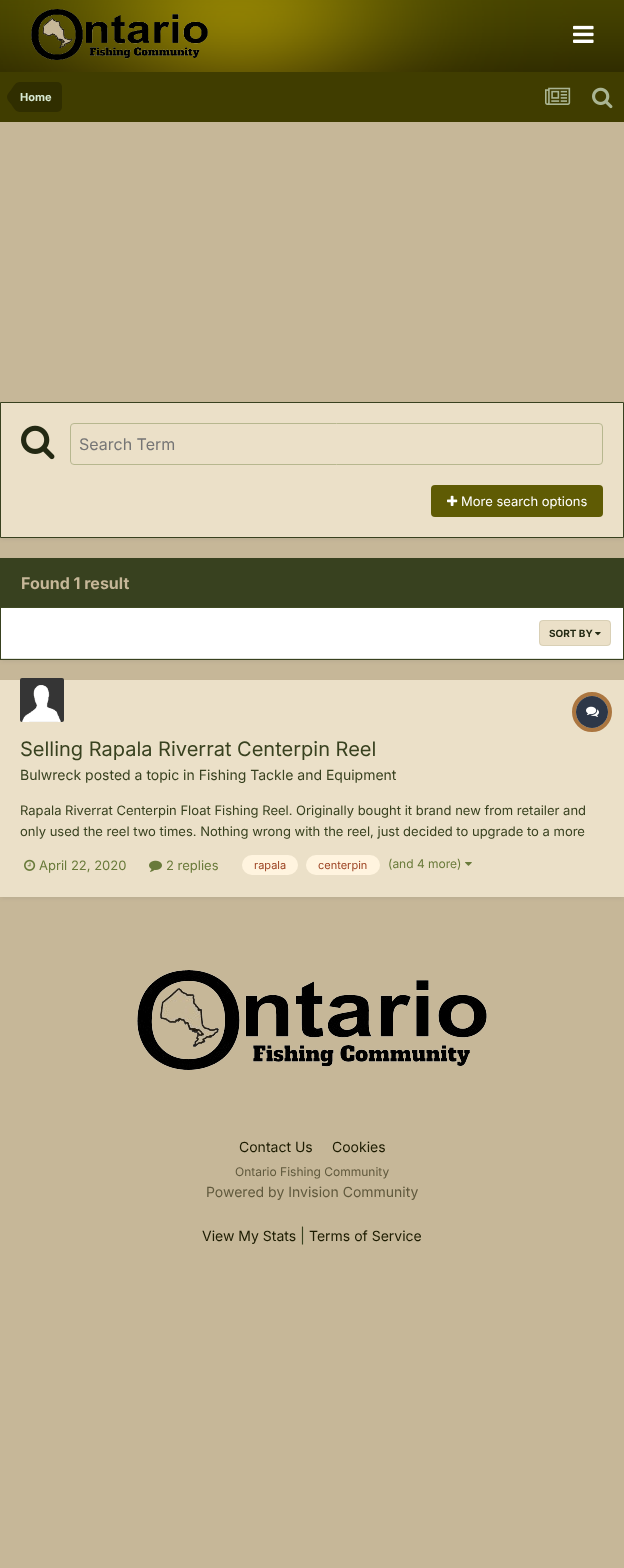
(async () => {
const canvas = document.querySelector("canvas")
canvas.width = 624
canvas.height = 1568
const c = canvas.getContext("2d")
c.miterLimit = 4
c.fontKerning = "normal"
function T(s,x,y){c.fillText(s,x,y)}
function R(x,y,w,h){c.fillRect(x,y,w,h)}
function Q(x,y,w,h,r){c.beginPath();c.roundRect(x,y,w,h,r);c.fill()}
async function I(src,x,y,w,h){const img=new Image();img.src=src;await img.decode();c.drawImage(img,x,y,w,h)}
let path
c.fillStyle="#c6b798"
R(0,0,624,1568)
await I("1.png",0,0,624,72)
await I("2.png",31,9,177,51)
await I("3.png",573,25,21,18)
c.fillStyle="#403d00"
R(0,72,624,50)
c.fillStyle="#302e00"
c.beginPath()
c.roundRect(20,82,42,30,[0,5,5,0])
c.fill()
path = new Path2D("M20 97v15c-4.5 0-6.5-4.5-9-8c-1.5-2-4-4-4-7zm0 0h-13c0-3 2.5-5 4-7c2.5-3.5 4.5-8 9-8z")
c.fill(path)
c.font="bold 11px Inter"
c.fillStyle="#d9ead3"
T("Home",20,101)
await I("4.png",545,87,26,18)
await I("5.png",592,87,21,22)
c.fillStyle="#2d37481a"
c.filter="blur(2px)"
c.beginPath()
c.rect(1,405,622,134)
c.fill()
c.filter="none"
c.fillStyle="#ebe0c8"
c.beginPath()
c.rect(.5,402.5,623,135)
c.fill()
c.strokeStyle="#38411f"
c.stroke()
await I("6.png",21,425,34,35)
c.beginPath()
c.roundRect(70.5,423.5,532,41,3.5)
c.strokeStyle="#b7b78f"
c.stroke()
c.font="16px Inter"
c.fillStyle="#757575"
T("Search Term",79,450)
c.fillStyle="#5f5b04"
Q(431,485,172,32,4)
await I("7.png",447,495,11,11)
c.font="13px Inter"
c.fillStyle="#fff"
T("More search options",461,506)
c.fillStyle="#2d37481a"
c.filter="blur(2px)"
c.beginPath()
c.rect(1,561,622,100)
c.fill()
c.filter="none"
c.strokeStyle="#38411f"
c.strokeRect(.5,558.5,623,101)
c.fillStyle="#38411f"
R(1,559,622,48)
c.fillStyle="#3f4a23"
R(1,607,622,1)
c.font="bold 16px Inter"
c.fillStyle="#c6b798"
T("Found 1 result",21,589)
c.fillStyle="#fff"
R(1,608,622,50)
c.fillStyle="#e1e3dd"
R(1,658,622,1)
c.fillStyle="#ebe0c8"
Q(539,620,72,26,4)
await I("8.png",595,632,6,4)
c.beginPath()
c.roundRect(539.5,620.5,71,25,3.5)
c.strokeStyle="#38411f1a"
c.stroke()
c.font="bold 10px Inter"
c.fillStyle="#232913"
T("SORT BY",549,637)
c.fillStyle="#2d37481a"
c.filter="blur(2px)"
c.beginPath()
c.rect(1,683,622,215)
c.fill()
c.filter="none"
c.fillStyle="#ebe0c8"
R(0,680,624,217)
await I("9.png",20,678,44,44)
c.beginPath()
c.arc(592,712,18,0,7)
c.strokeStyle="#ab7640"
c.lineWidth=4
c.stroke()
c.fillStyle="#2d3748"
c.beginPath()
c.arc(592,712,16,0,7)
c.fill()
await I("10.png",586,706,13,11)
c.font="20px Inter"
c.fillStyle="#38411f"
T("Selling Rapala Riverrat Centerpin Reel",20,756)
c.font="14px Inter"
T("Bulwreck posted a topic in Fishing Tackle and Equipment",20,780)
c.font="13px Inter"
T("Rapala Riverrat Centerpin Float Fishing Reel. Originally bought it brand new from retailer and",20,815)
T("only used the reel two times. Nothing wrong with the reel, just decided to upgrade to a more",20,836)
await I("11.png",24,859,12,12)
c.fillStyle="#697a3a"
T("April 22, 2020",39,870)
await I("12.png",149,860,13,12)
T("2 replies",166,870)
c.fillStyle="#fff4df"
Q(242,855,56,20,10)
c.font="11px Inter"
c.fillStyle="#9c4221"
T("rapala",254,869)
c.fillStyle="#fff4df"
Q(306,855,74,20,10)
c.fillStyle="#9c4221"
T("centerpin",318,869)
c.font="12px Inter"
c.fillStyle="#697a3a"
T("(and 4 more)",388,868)
await I("13.png",465,862,7,4)
await I("14.png",137,970,350,100)
c.font="14px Inter"
c.fillStyle="#1c1b00"
T("Contact Us",239,1152)
T("Cookies",332,1152)
c.font="12px Inter"
c.fillStyle="#60593d"
T("Ontario Fishing Community",235,1176)
c.font="14px Inter"
T("Powered by Invision Community",206,1197)
c.fillStyle="#1c1b00"
T("View My Stats",202,1241)
c.font="15px Inter"
c.fillStyle="#38411f"
T("|",300,1241)
c.font="14px Inter"
c.fillStyle="#1c1b00"
T("Terms of Service",309,1241)
})()
